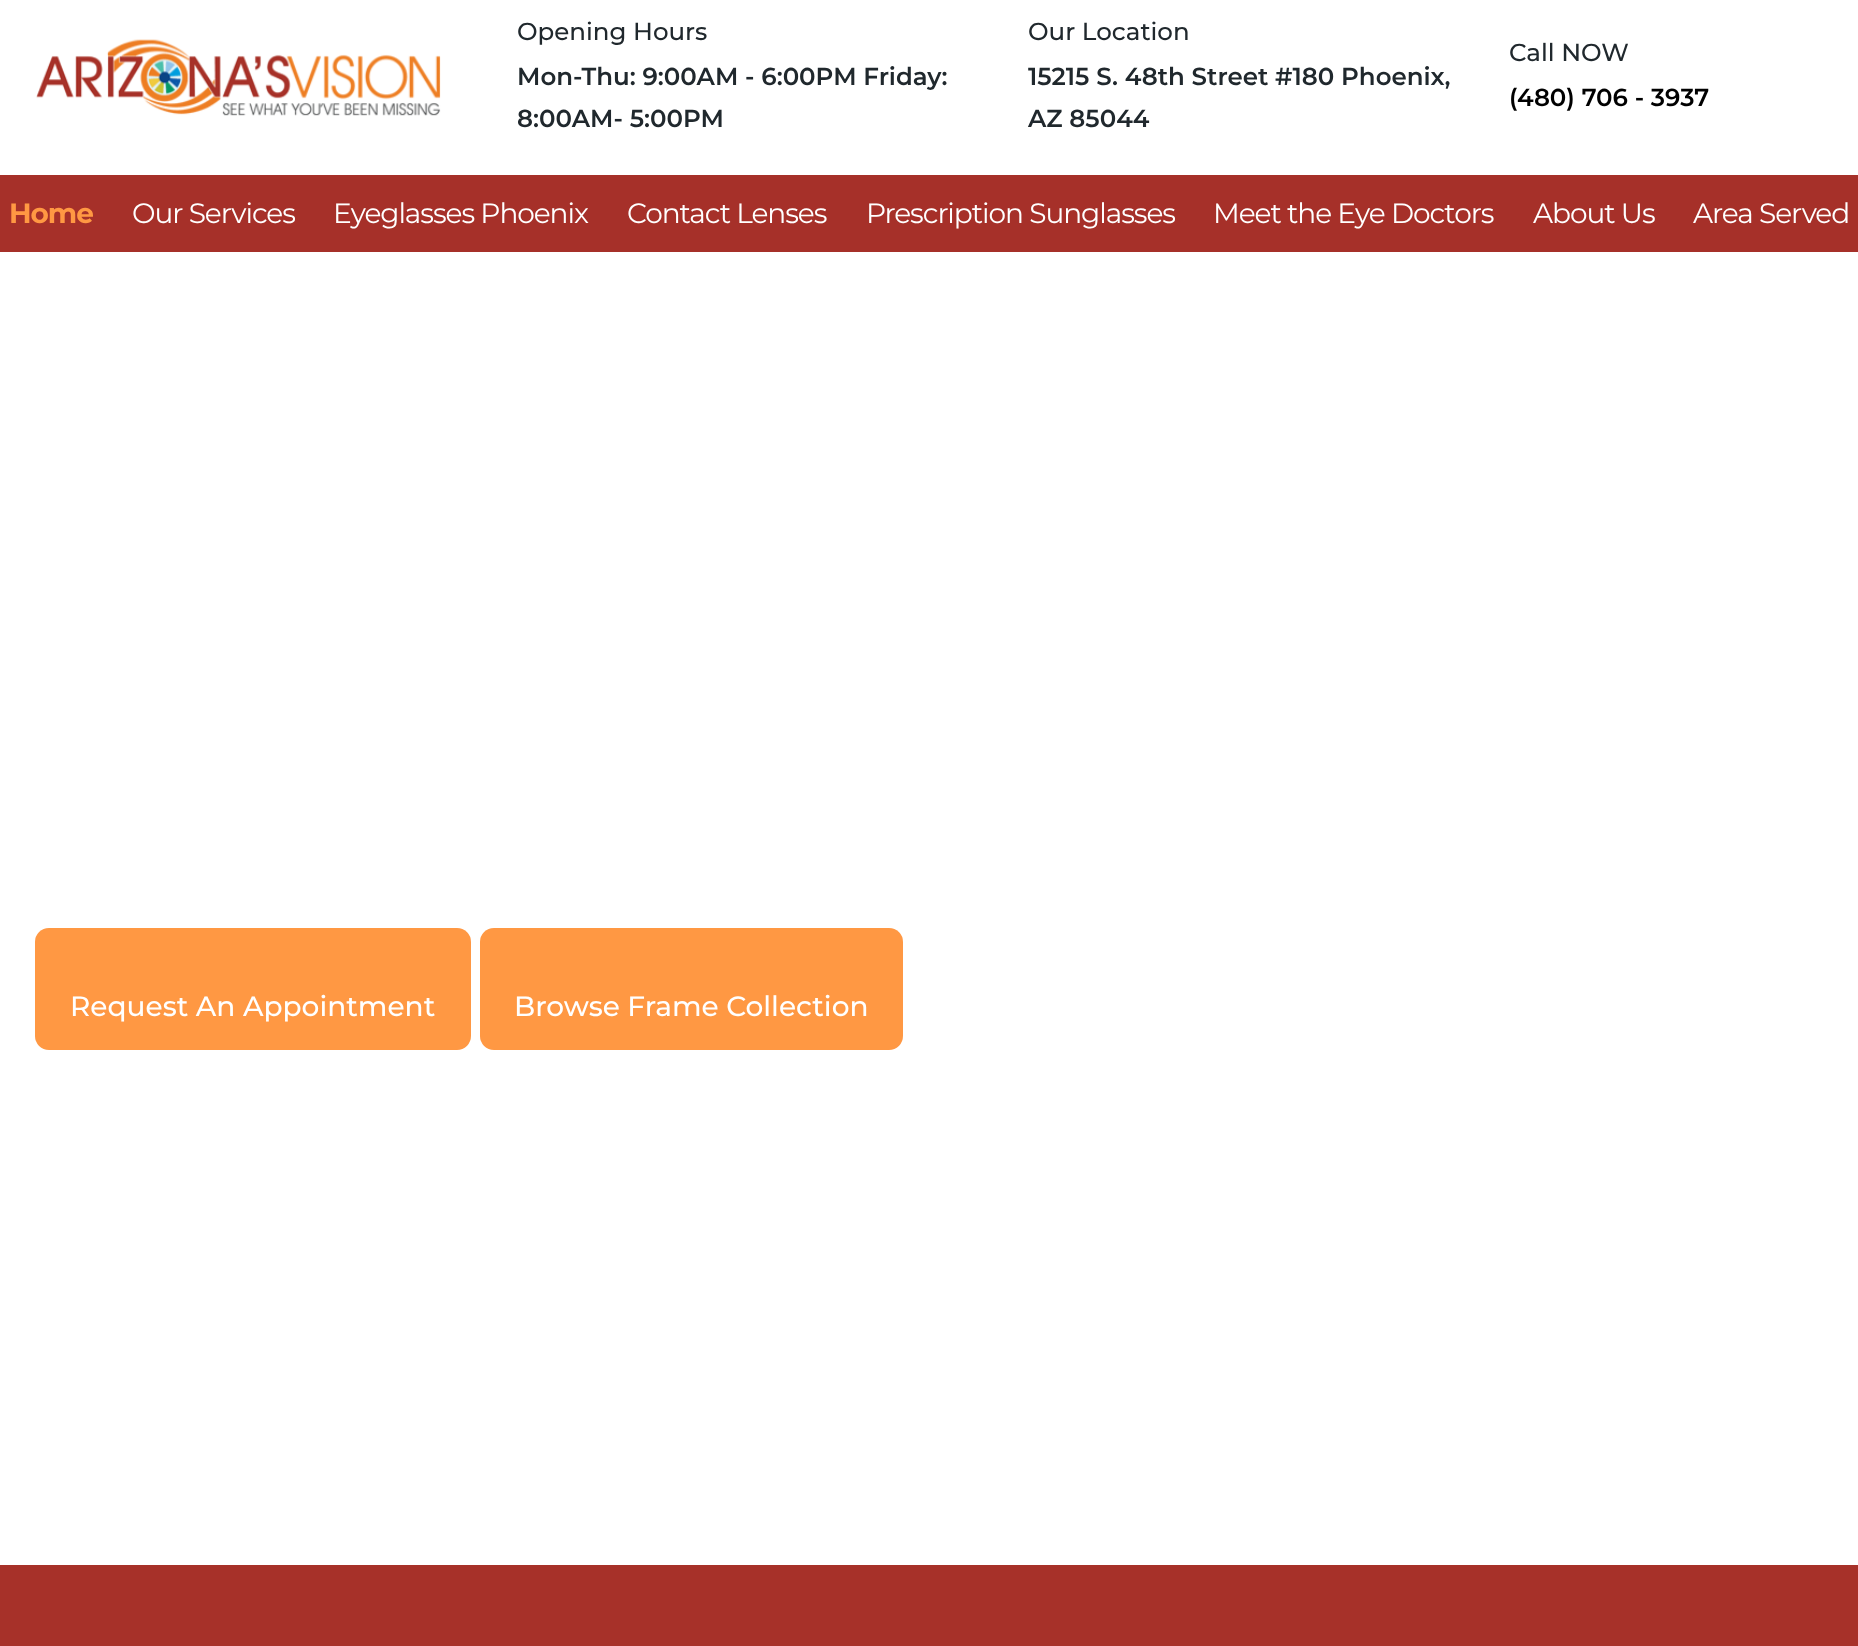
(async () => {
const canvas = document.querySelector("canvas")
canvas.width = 1858
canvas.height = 1646
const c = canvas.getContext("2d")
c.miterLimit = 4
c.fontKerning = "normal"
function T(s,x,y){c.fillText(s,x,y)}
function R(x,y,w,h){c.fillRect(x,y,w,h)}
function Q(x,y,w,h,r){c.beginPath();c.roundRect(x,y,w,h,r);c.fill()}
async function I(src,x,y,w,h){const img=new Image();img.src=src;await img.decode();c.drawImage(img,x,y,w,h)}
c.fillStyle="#fff"
R(0,0,1858,1646)
await I("1.png",36,39,405,77)
c.font="500 24.5px Montserrat"
c.fillStyle="#20282d"
T("Opening Hours",517,40)
c.font="600 24.5px Montserrat"
T("Mon-Thu: 9:00AM - 6:00PM Friday:",517,85)
T("8:00AM- 5:00PM",517,127)
c.font="500 24.5px Montserrat"
T("Our Location",1028,40)
c.font="600 24.5px Montserrat"
T("15215 S. 48th Street #180 Phoenix,",1028,85)
T("AZ 85044",1028,127)
c.font="500 24.5px Montserrat"
T("Call NOW",1509,61)
c.font="600 24.5px Montserrat"
c.fillStyle="#000"
T("(480) 706 - 3937",1509,106)
c.fillStyle="#a63029"
R(0,175,1858,77)
c.letterSpacing="-1.05px"
c.font="bold 28px Montserrat"
c.fillStyle="#ff9843"
T("Home",9,223)
c.font="28px Montserrat"
c.fillStyle="#fff"
T("Our Services",132,223)
T("Eyeglasses Phoenix",333,223)
T("Contact Lenses",627,223)
T("Prescription Sunglasses",866,223)
T("Meet the Eye Doctors",1213,223)
T("About Us",1533,223)
T("Area Served",1693,223)
c.fillStyle="#ff9843"
Q(35,928,436,122,14)
c.letterSpacing="0px"
c.font="500 28px Montserrat"
c.fillStyle="#fff"
T("Request An Appointment",70,1016)
c.fillStyle="#ff9843"
Q(480,928,423,122,14)
c.fillStyle="#fff"
T("Browse Frame Collection",514,1016)
c.fillStyle="#a73129"
R(0,1565,1858,81)
})()
